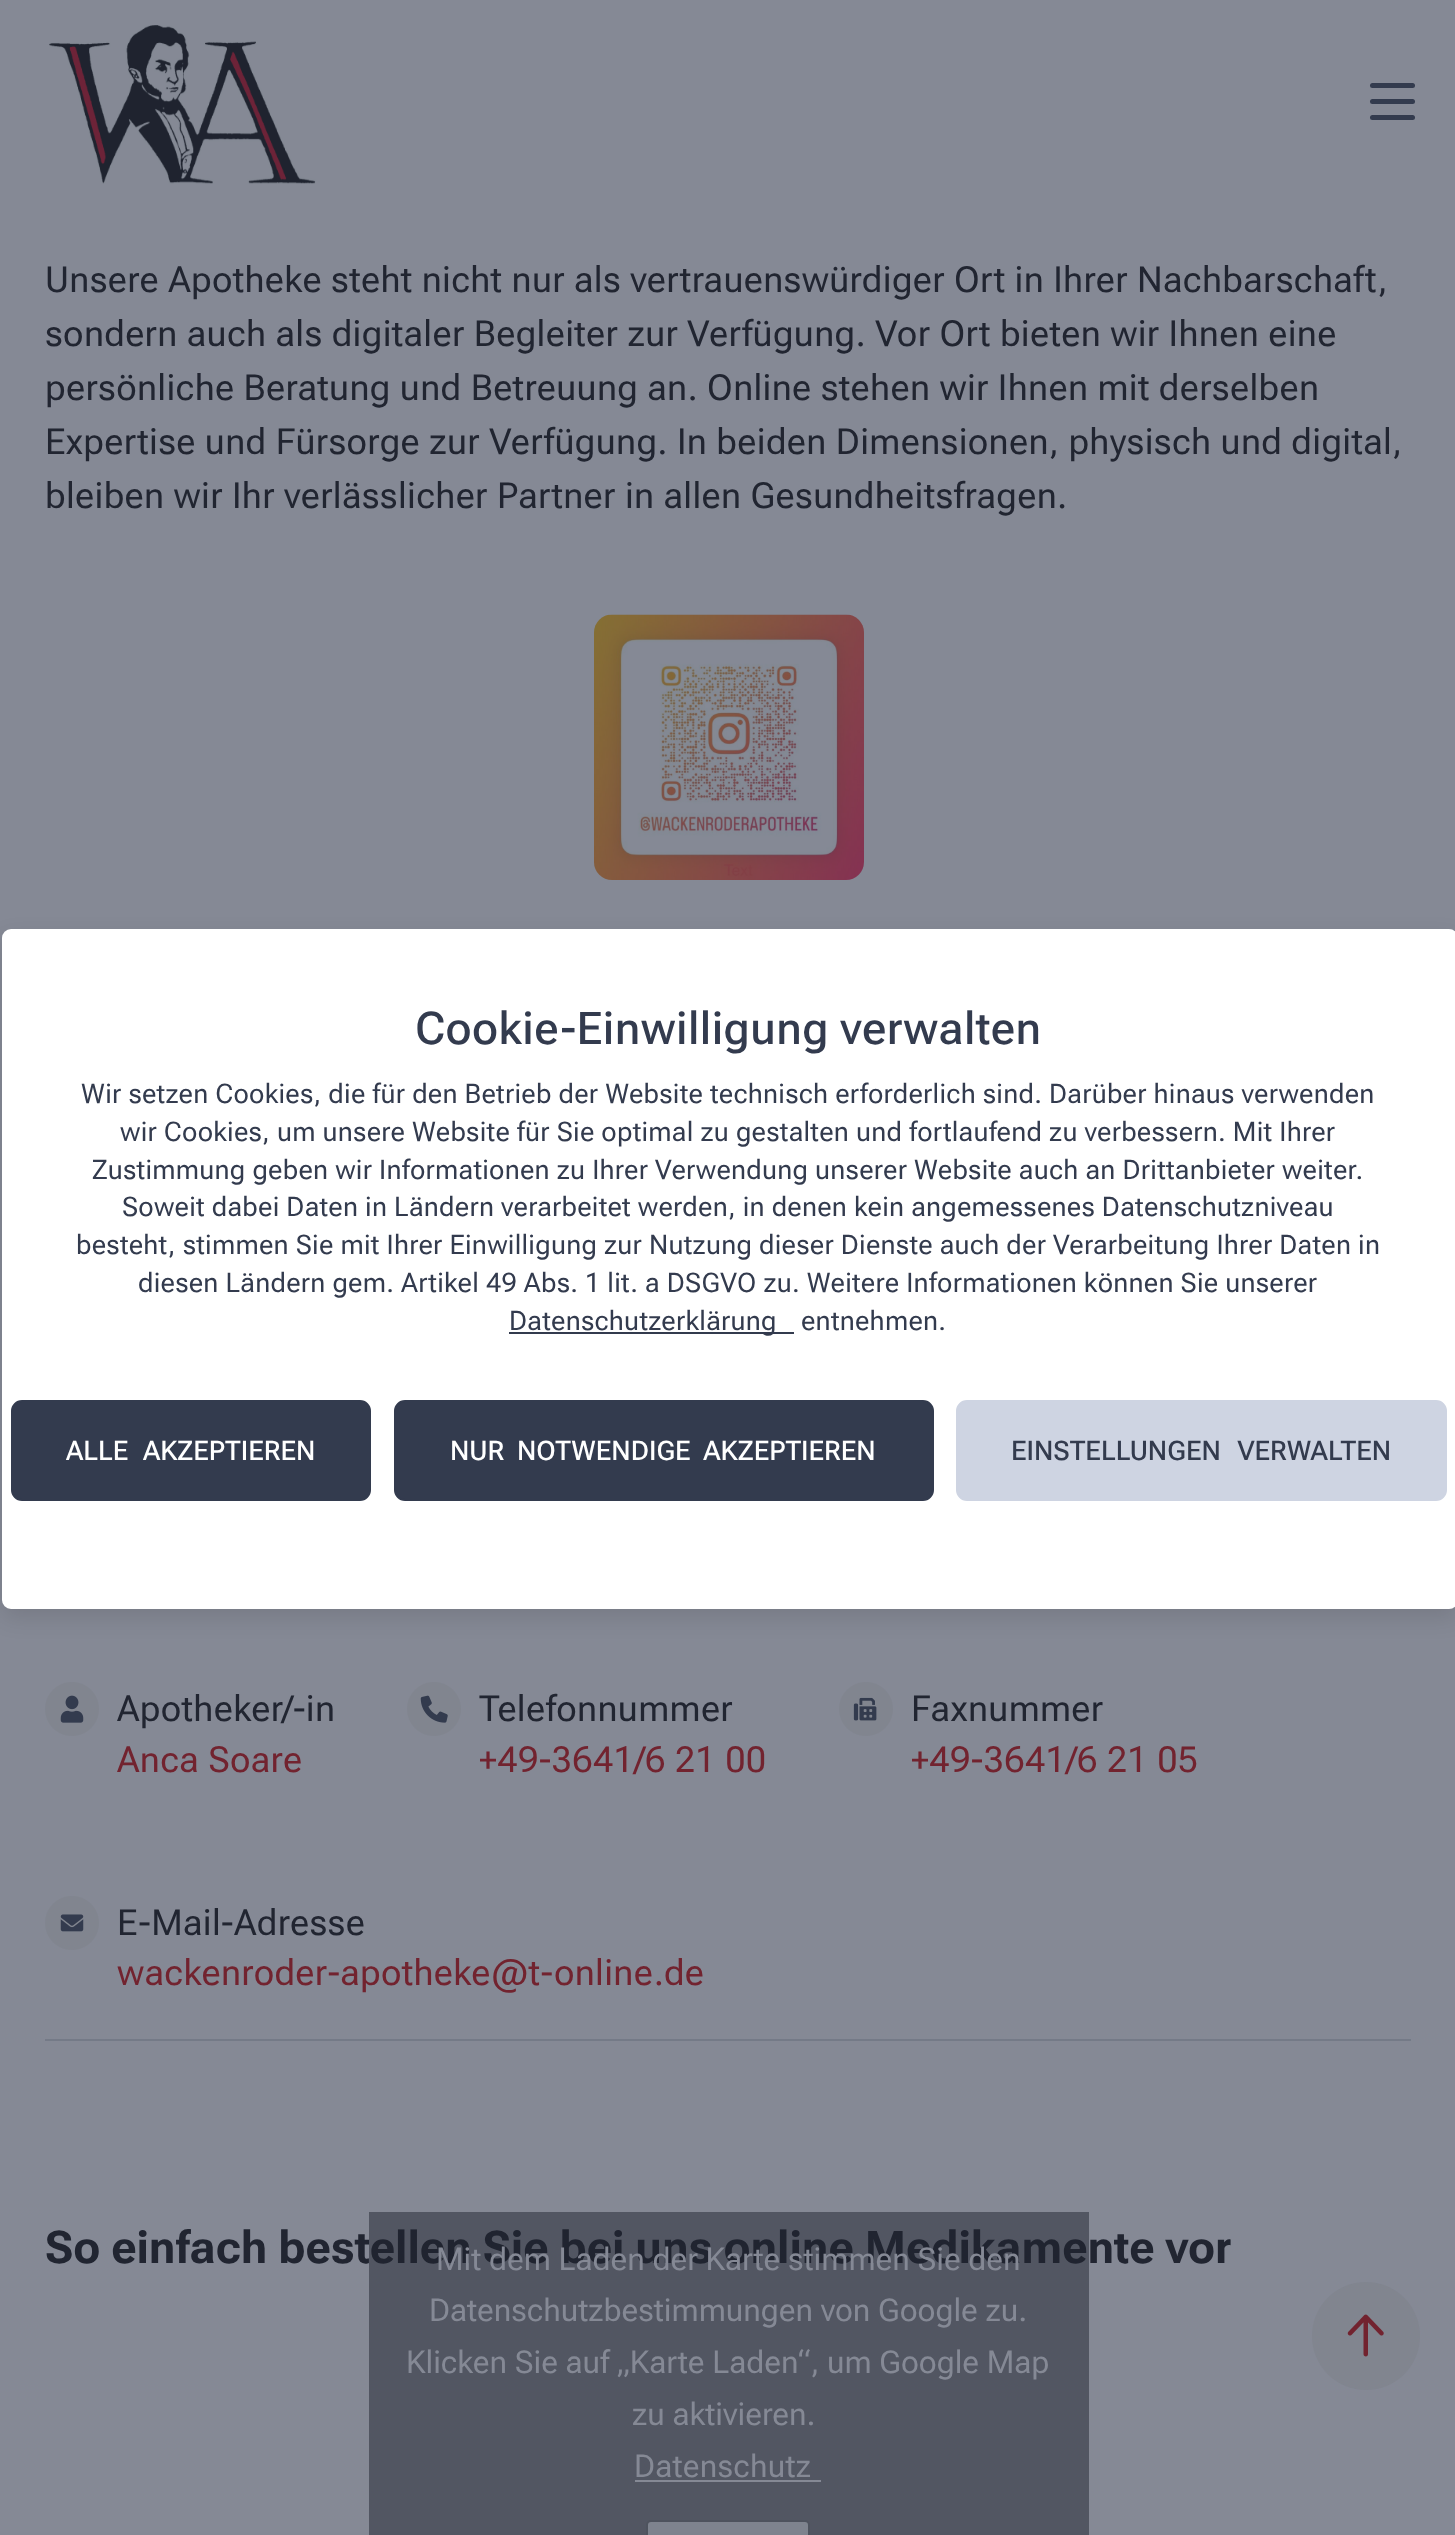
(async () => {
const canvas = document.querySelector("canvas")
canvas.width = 1455
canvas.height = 2535
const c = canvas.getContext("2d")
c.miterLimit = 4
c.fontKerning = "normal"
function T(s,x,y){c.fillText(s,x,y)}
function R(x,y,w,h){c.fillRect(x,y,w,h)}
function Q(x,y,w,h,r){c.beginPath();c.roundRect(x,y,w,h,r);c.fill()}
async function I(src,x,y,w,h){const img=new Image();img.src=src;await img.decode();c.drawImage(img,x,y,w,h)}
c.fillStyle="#858995"
R(0,0,1455,2535)
await I("1.png",49,25,267,159)
c.fillStyle="#333b4e"
Q(1370,83,45,5,2.5)
Q(1370,99,45,5,2.5)
Q(1370,115,45,5,2.5)
c.letterSpacing="0.35px"
c.font="36px Roboto Flex"
c.fillStyle="#212531"
T("Unsere Apotheke steht nicht nur als vertrauenswürdiger Ort in Ihrer Nachbarschaft,",45,292)
T("sondern auch als digitaler Begleiter zur Verfügung. Vor Ort bieten wir Ihnen eine",45,346)
T("persönliche Beratung und Betreuung an. Online stehen wir Ihnen mit derselben",45,400)
T("Expertise und Fürsorge zur Verfügung. In beiden Dimensionen, physisch und digital,",45,454)
T("bleiben wir Ihr verlässlicher Partner in allen Gesundheitsfragen.",45,508)
await I("2.png",594,614,270,266)
await I("3.png",45,1682,54,54)
T("Apotheker/-in",117,1721)
c.fillStyle="#72232f"
T("Anca Soare",117,1772)
await I("4.png",407,1682,54,54)
c.fillStyle="#212531"
T("Telefonnummer",479,1721)
c.fillStyle="#72232f"
T("+49-3641/6 21 00",479,1772)
await I("5.png",839,1682,54,54)
c.fillStyle="#212531"
T("Faxnummer",911,1721)
c.fillStyle="#72232f"
T("+49-3641/6 21 05",911,1772)
await I("6.png",45,1896,54,54)
c.fillStyle="#212531"
T("E-Mail-Adresse",117,1935)
c.fillStyle="#72232f"
T("wackenroder-apotheke@t-online.de",117,1985)
c.fillStyle="#747a87"
R(45,2039,1366,2)
c.letterSpacing="0px"
c.font="bold 45px Roboto Flex"
c.fillStyle="#212531"
T("So einfach bestellen Sie bei uns online Medikamente vor",45,2263)
c.fillStyle="#1f232f80"
R(369,2212,720,323)
c.font="31.5px Roboto Flex"
c.fillStyle="#858995"
T("Mit dem Laden der Karte stimmen Sie den",436,2270)
T("Datenschutzbestimmungen von Google zu.",429,2321)
T("Klicken Sie auf „Karte Laden“, um Google Map",406,2373)
T("zu aktivieren.",632,2425)
c.letterSpacing="0.25px"
T("Datenschutz",634,2477)
R(635,2480,186,2)
c.fillStyle="#7e838e"
c.beginPath()
c.roundRect(647,2521,162,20,4)
c.fill()
c.strokeStyle="#4e535e"
c.lineWidth=2
c.stroke()
c.fillStyle="#81858f"
c.beginPath()
c.arc(1366,2336,54,0,7)
c.fill()
await I("7.png",1347,2314,37,43)
c.fillStyle="#0000001a"
c.filter="blur(11px)"
c.beginPath()
c.roundRect(2,938,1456,680,9)
c.fill()
c.filter="none"
c.fillStyle="#fff"
Q(2,929,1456,680,9)
c.letterSpacing="0.45px"
c.font="500 45px Roboto Flex"
c.fillStyle="#333b4e"
T("Cookie-Einwilligung verwalten",415,1044)
c.letterSpacing="0.27px"
c.font="27px Roboto Flex"
T("Wir setzen Cookies, die für den Betrieb der Website technisch erforderlich sind. Darüber hinaus verwenden",81,1103)
T("wir Cookies, um unsere Website für Sie optimal zu gestalten und fortlaufend zu verbessern. Mit Ihrer",120,1141)
T("Zustimmung geben wir Informationen zu Ihrer Verwendung unserer Website auch an Drittanbieter weiter.",92,1179)
T("Soweit dabei Daten in Ländern verarbeitet werden, in denen kein angemessenes Datenschutzniveau",122,1216)
T("besteht, stimmen Sie mit Ihrer Einwilligung zur Nutzung dieser Dienste auch der Verarbeitung Ihrer Daten in",76,1254)
T("diesen Ländern gem. Artikel 49 Abs. 1 lit. a DSGVO zu. Weitere Informationen können Sie unserer",138,1292)
R(509,1332,285,2)
T("Datenschutzerklärung",509,1330)
T("entnehmen.",801,1330)
c.beginPath()
c.roundRect(12,1401,358,99,10)
c.fill()
c.strokeStyle="#333b4e"
c.stroke()
c.letterSpacing="0px"
c.wordSpacing="8px"
c.font="500 27px Roboto Flex"
c.fillStyle="#fff"
T("ALLE AKZEPTIEREN",66,1460)
c.fillStyle="#333b4e"
c.beginPath()
c.roundRect(395,1401,538,99,10)
c.fill()
c.stroke()
c.wordSpacing="6px"
c.fillStyle="#fff"
T("NUR NOTWENDIGE AKZEPTIEREN",450,1460)
c.fillStyle="#ced4e2"
c.beginPath()
c.roundRect(957,1401,489,99,10)
c.fill()
c.strokeStyle="#ced4e2"
c.stroke()
c.wordSpacing="10px"
c.fillStyle="#333b4e"
T("EINSTELLUNGEN VERWALTEN",1011,1460)
})()
